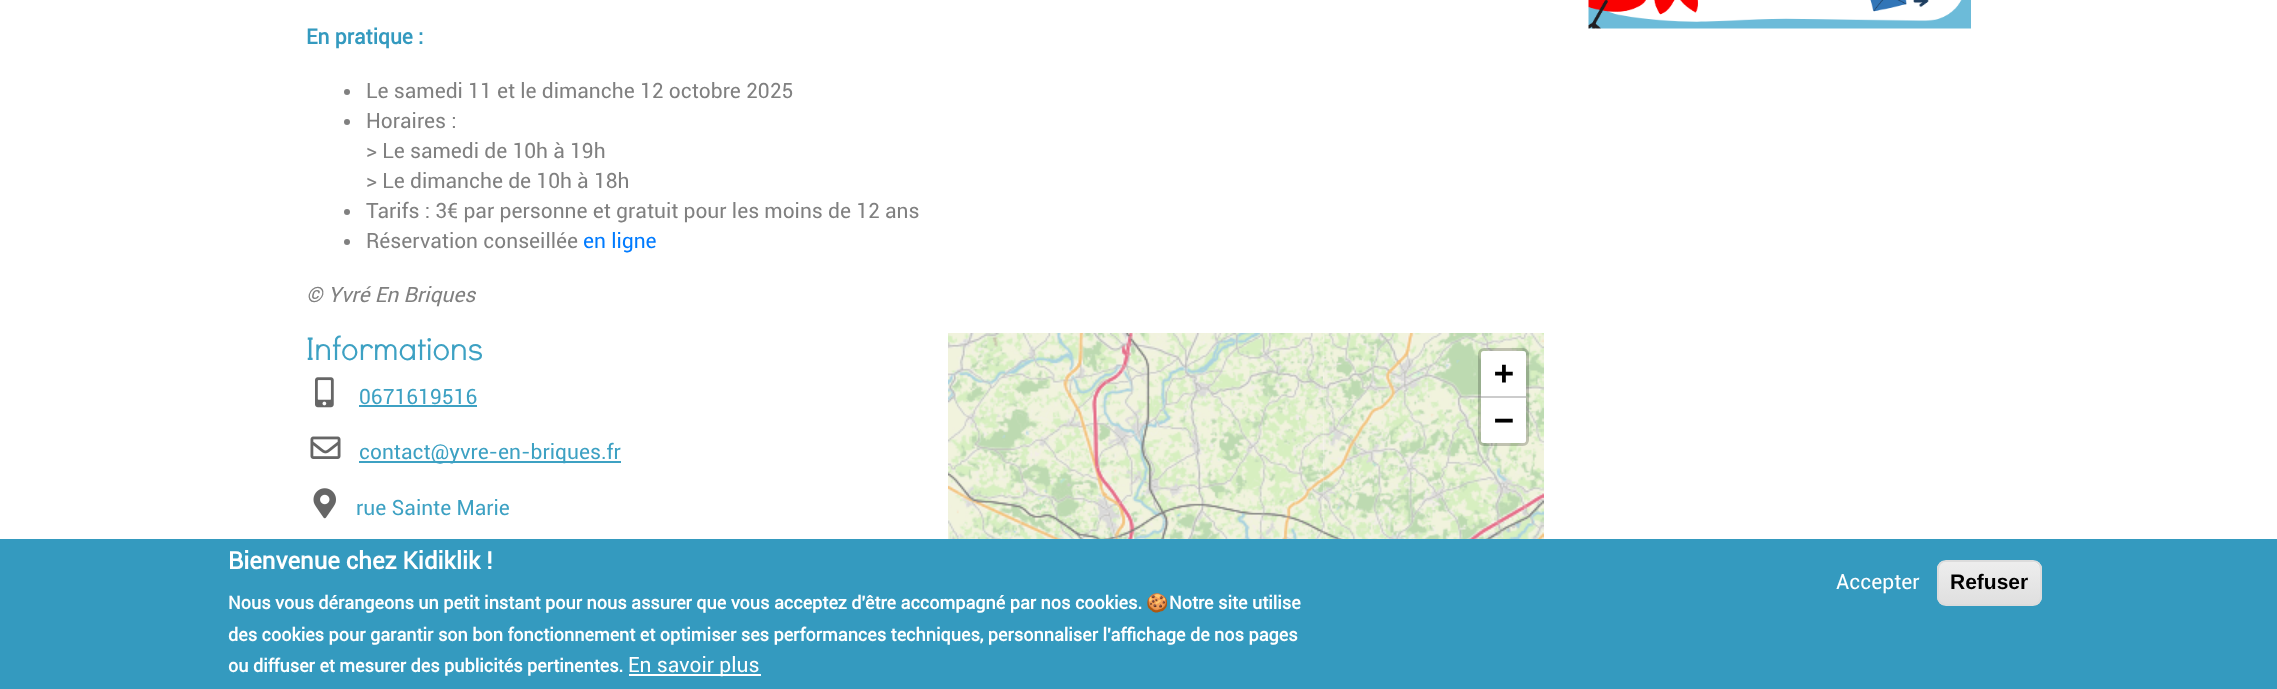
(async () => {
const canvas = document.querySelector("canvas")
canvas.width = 2277
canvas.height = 689
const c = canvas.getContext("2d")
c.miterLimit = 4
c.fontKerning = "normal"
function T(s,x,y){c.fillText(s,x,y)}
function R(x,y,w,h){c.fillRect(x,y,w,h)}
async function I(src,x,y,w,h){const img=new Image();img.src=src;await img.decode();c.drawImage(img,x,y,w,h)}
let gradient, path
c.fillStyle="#fff"
R(0,0,2277,689)
await I("1.png",1588,0,383,29)
c.font="bold 21px Roboto"
c.fillStyle="#349abf"
T("En pratique :",306,44)
c.fillStyle="#808080"
c.beginPath()
c.arc(347,92,3,0,7)
c.fill()
c.font="21px Roboto"
T("Le samedi 11 et le dimanche 12 octobre 2025",366,98)
c.beginPath()
c.arc(347,122,3,0,7)
c.fill()
T("Horaires :",366,128)
T("> Le samedi de 10h à 19h",366,158)
T("> Le dimanche de 10h à 18h",366,188)
c.beginPath()
c.arc(347,212,3,0,7)
c.fill()
T("Tarifs : 3€ par personne et gratuit pour les moins de 12 ans",366,218)
c.beginPath()
c.arc(347,242,3,0,7)
c.fill()
T("Réservation conseillée",366,248)
c.fillStyle="#007bff"
T("en ligne",583,248)
c.font="italic 21px Roboto"
c.fillStyle="#808080"
T("© Yvré En Briques",306,302)
c.font="33px Didact Gothic"
c.fillStyle="#3da1c3"
T("Informations",306,360)
await I("2.png",315,377,19,31)
c.font="21px Roboto"
T("0671619516",359,404)
R(359,405,118,2)
await I("3.png",310,436,31,23)
R(359,461,262,2)
T("contact@yvre-en-briques.fr",359,459)
await I("4.png",313,488,23,31)
T("rue Sainte Marie",356,515)
await I("5.png",948,333,375,206)
await I("6.png",1322,333,222,206)
c.beginPath()
c.roundRect(1479.5,349.5,48,95,4.5)
c.strokeStyle="#00000033"
c.lineWidth=3
c.stroke()
c.fillStyle="#fff"
c.beginPath()
c.roundRect(1481,351,45,47,[3,3,0,0])
c.fill()
c.fillStyle="#ccc"
R(1481,396,45,2)
c.font="bold 33px DejaVu Sans Mono"
c.fillStyle="#000"
T("+",1494,384)
c.fillStyle="#fff"
c.beginPath()
c.roundRect(1481,398,45,45,[0,0,3,3])
c.fill()
c.fillStyle="#000"
T("−",1494,431)
c.fillStyle="#349abf"
R(0,539,2277,150)
c.font="bold 24px Roboto"
c.fillStyle="#fff"
T("Bienvenue chez Kidiklik !",228,569)
c.font="bold 18px Roboto"
T("Nous vous dérangeons un petit instant pour nous assurer que vous acceptez d'être accompagné par nos cookies.",228,609)
c.font="bold 18px Noto Color Emoji"
T("🍪",1146,609)
c.font="bold 18px Roboto"
T("Notre site utilise",1169,609)
T("des cookies pour garantir son bon fonctionnement et optimiser ses performances techniques, personnaliser l'affichage de nos pages",228,641)
T("ou diffuser et mesurer des publicités pertinentes.",228,672)
R(629,674,132,2)
c.font="21px Roboto"
T("En savoir plus",628,672)
T("Accepter",1836,589)
c.save()
c.beginPath()
c.roundRect(1937,560,105,46,9)
c.clip()
gradient = c.createLinearGradient(1989,561,1989,605)
gradient.addColorStop(.05,"#ededed")
gradient.addColorStop(1,"#dfdfdf")
c.fillStyle = gradient
R(1937,561,105,44)
c.restore()
path = new Path2D("M1946 562h86c5 0 8 4 8 8c0-12-14-9-22-9h-58c-8 0-22-3-22 9c0-4 3-8 8-8z")
c.fill(path)
c.beginPath()
c.roundRect(1938,561,103,44,8)
c.strokeStyle="#dcdcdc"
c.lineWidth=2
c.stroke()
c.font="bold 21px Liberation Sans"
c.fillStyle="#000"
T("Refuser",1950,589)
})()
